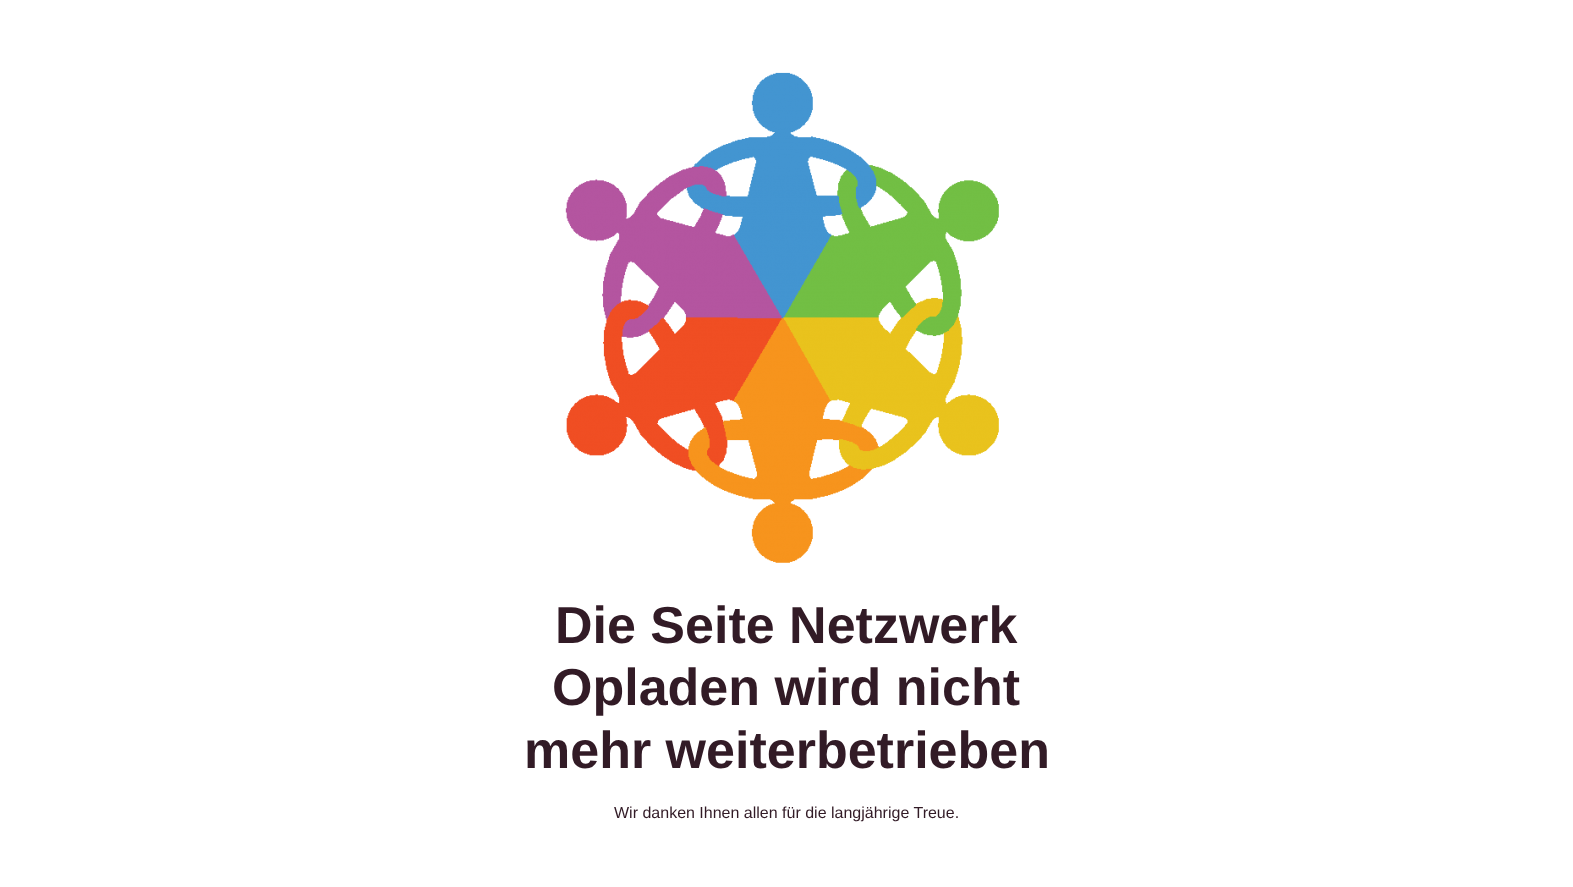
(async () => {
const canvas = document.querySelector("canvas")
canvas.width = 1573
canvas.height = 887
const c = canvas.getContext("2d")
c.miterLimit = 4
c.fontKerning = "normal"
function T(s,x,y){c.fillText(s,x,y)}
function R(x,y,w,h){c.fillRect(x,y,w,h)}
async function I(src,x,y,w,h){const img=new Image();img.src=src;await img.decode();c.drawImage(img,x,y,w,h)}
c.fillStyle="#fff"
R(0,0,1573,887)
await I("1.png",565,72,434,491)
c.font="bold 52px Liberation Sans"
c.fillStyle="#321b26"
T("Die Seite Netzwerk",555,643)
T("Opladen wird nicht",552,705)
T("mehr weiterbetrieben",524,768)
c.font="16px Liberation Sans"
T("Wir danken Ihnen allen für die langjährige Treue.",614,818)
})()
